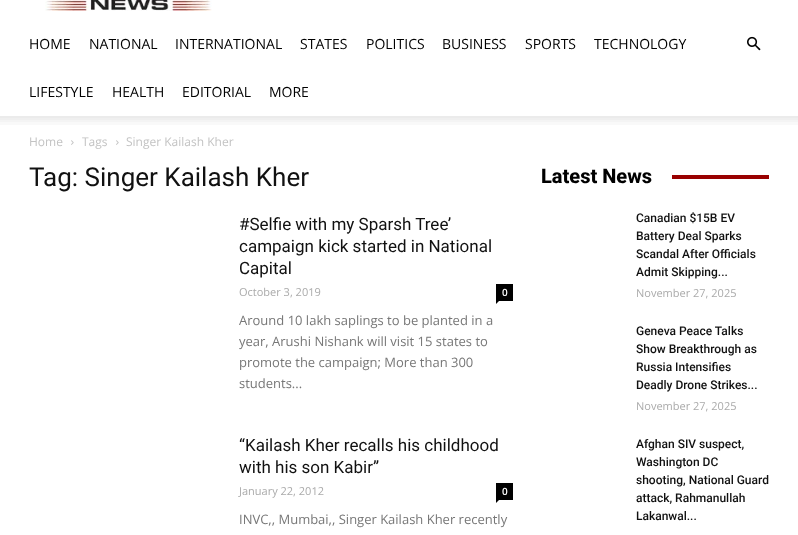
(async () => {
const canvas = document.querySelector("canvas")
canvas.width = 798
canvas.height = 535
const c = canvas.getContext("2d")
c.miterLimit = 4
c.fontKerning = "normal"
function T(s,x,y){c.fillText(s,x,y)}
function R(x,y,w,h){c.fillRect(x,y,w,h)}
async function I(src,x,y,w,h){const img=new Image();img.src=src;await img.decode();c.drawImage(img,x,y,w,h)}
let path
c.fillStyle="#fff"
R(0,0,798,535)
await I("1.png",45,0,167,11)
c.font="14px Open Sans"
c.fillStyle="#000"
T("HOME",29,49)
T("NATIONAL",89,49)
T("INTERNATIONAL",175,49)
T("STATES",300,49)
T("POLITICS",366,49)
T("BUSINESS",442,49)
T("SPORTS",525,49)
T("TECHNOLOGY",594,49)
T("LIFESTYLE",29,97)
T("HEALTH",112,97)
T("EDITORIAL",182,97)
T("MORE",269,97)
await I("2.png",747,36,14,15)
await I("3.png",0,116,798,9)
c.font="12px Open Sans"
c.fillStyle="#c3c3c3"
T("Home",29,146)
await I("4.png",71,140,3,5)
T("Tags",82,146)
await I("4.png",116,140,3,5)
T("Singer Kailash Kher",126,146)
c.font="26px Roboto"
c.fillStyle="#111"
T("Tag: Singer Kailash Kher",29,186)
c.font="17px Roboto"
T("#Selfie with my Sparsh Tree’",239,230)
T("campaign kick started in National",239,252)
T("Capital",239,274)
c.font="11px Open Sans"
c.fillStyle="#aaa"
T("October 3, 2019",239,296)
c.fillStyle="#000"
R(496,284,17,17)
c.font="600 10px Open Sans"
c.fillStyle="#fff"
T("0",502,296)
c.fillStyle="#000"
path = new Path2D("M496 301h3l-3 3z")
c.fill(path)
c.font="13px Open Sans"
c.fillStyle="#777"
T("Around 10 lakh saplings to be planted in a",239,325)
T("year, Arushi Nishank will visit 15 states to",239,346)
T("promote the campaign; More than 300",239,367)
T("students...",239,388)
c.font="17px Roboto"
c.fillStyle="#111"
T("“Kailash Kher recalls his childhood",239,451)
T("with his son Kabir”",239,473)
c.font="11px Open Sans"
c.fillStyle="#aaa"
T("January 22, 2012",239,495)
c.fillStyle="#000"
R(496,483,17,17)
c.font="600 10px Open Sans"
c.fillStyle="#fff"
T("0",502,495)
c.fillStyle="#000"
path = new Path2D("M496 500h3l-3 3z")
c.fill(path)
c.font="13px Open Sans"
c.fillStyle="#777"
T("INVC,, Mumbai,, Singer Kailash Kher recently",239,524)
c.font="800 20px Roboto"
c.fillStyle="#000"
T("Latest News",541,183)
c.fillStyle="#900"
R(672,175,97,4)
c.font="500 12px Roboto"
c.fillStyle="#111"
T("Canadian $15B EV",636,222)
T("Battery Deal Sparks",636,240)
T("Scandal After Officials",636,258)
T("Admit Skipping...",636,276)
c.font="11px Open Sans"
c.fillStyle="#aaa"
T("November 27, 2025",636,297)
c.font="500 12px Roboto"
c.fillStyle="#111"
T("Geneva Peace Talks",636,335)
T("Show Breakthrough as",636,353)
T("Russia Intensifies",636,371)
T("Deadly Drone Strikes...",636,389)
c.font="11px Open Sans"
c.fillStyle="#aaa"
T("November 27, 2025",636,410)
c.font="500 12px Roboto"
c.fillStyle="#111"
T("Afghan SIV suspect,",636,448)
T("Washington DC",636,466)
T("shooting, National Guard",636,484)
T("attack, Rahmanullah",636,502)
T("Lakanwal...",636,520)
})()
